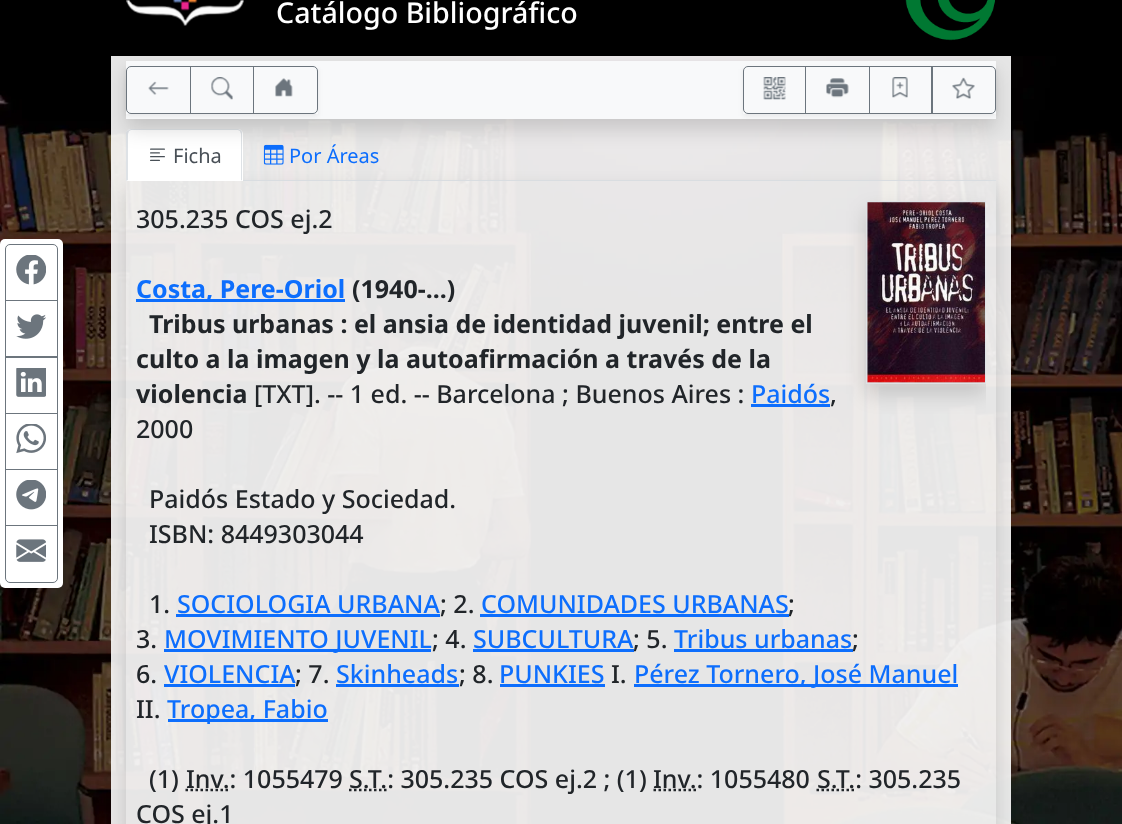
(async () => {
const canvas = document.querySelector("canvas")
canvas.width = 1122
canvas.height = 824
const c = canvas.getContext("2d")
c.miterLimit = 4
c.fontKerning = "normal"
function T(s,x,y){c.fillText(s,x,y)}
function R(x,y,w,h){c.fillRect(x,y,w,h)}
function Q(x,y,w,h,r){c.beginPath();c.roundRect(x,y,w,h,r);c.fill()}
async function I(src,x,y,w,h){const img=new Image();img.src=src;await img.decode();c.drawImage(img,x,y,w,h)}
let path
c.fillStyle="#fff"
R(0,0,1122,824)
await I("1.png",0,56,1122,768)
c.fillStyle="#000"
R(0,0,1122,56)
await I("2.png",126,0,118,26)
c.font="500 28.6px Noto Sans"
c.fillStyle="#fff"
T("Catálogo Bibliográfico",276,23)
await I("3.png",905,0,90,41)
c.fillStyle="#00000026"
c.filter="blur(10px)"
c.beginPath()
c.roundRect(0,249,63,349,5)
c.fill()
c.filter="none"
c.fillStyle="#fff"
Q(0,239,63,349,5)
c.beginPath()
c.roundRect(5.5,244.5,52,56,[4.5,4.5,0,0])
c.strokeStyle="#6c757d"
c.stroke()
await I("4.png",16,255,30,30)
c.strokeRect(5.5,300.5,52,57)
await I("5.png",16,314,30,25)
c.strokeRect(5.5,356.5,52,57)
await I("6.png",16,368,30,29)
c.strokeRect(5.5,413.5,52,56)
await I("7.png",16,424,30,30)
c.strokeRect(5.5,469.5,52,56)
await I("8.png",16,480,30,30)
c.beginPath()
c.roundRect(5.5,525.5,52,57,[0,0,4.5,4.5])
c.stroke()
await I("9.png",16,539,30,23)
c.fillStyle="#ffffffe6"
R(111,56,900,768)
c.fillStyle="#dee2e6"
R(243,180,753,1)
c.save()
path = new Path2D("M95 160h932v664h-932zm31 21h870v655h-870z")
c.clip(path,"evenodd")
c.fillStyle="#00000026"
c.filter="blur(10px)"
c.beginPath()
c.rect(126,191,870,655)
c.fill()
c.filter="none"
c.restore()
c.fillStyle="#fff"
c.beginPath()
c.roundRect(126,129,117,52,[5,5,0,0])
c.fill()
c.fillStyle="#dee2e6"
path = new Path2D("M131 129l-3 1l1 1l2-1h107l2 1l1-1c-1 0-2-1-3-1z")
c.fill(path)
path = new Path2D("M242 181v-47c0-1 0-3-1-4l-1 1l1 3v46z")
c.fill(path)
c.fillStyle="#fff"
path = new Path2D("M242 181h-116l2-1h113z")
c.fill(path)
c.fillStyle="#dee2e6"
path = new Path2D("M126 132l2-2l1 1l-1 3v46l-2 1z")
c.fill(path)
await I("17.png",150,148,15,13)
await I("18.png",263,144,21,21)
c.fillStyle="#00000026"
c.filter="blur(10px)"
c.beginPath()
c.rect(126,71,870,58)
c.fill()
c.filter="none"
c.fillStyle="#f8f9fa"
R(126,61,870,58)
c.save()
path = new Path2D("M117 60h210v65h-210zm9 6h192v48h-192z")
c.clip(path,"evenodd")
c.fillStyle="#00000012"
c.filter="blur(2.5px)"
c.beginPath()
c.rect(126,69,192,47)
c.fill()
c.filter="none"
c.restore()
c.beginPath()
c.roundRect(126.5,66.5,64,47,[4.5,0,0,4.5])
c.stroke()
await I("10.png",148,81,21,14)
c.strokeRect(190.5,66.5,63,47)
await I("11.png",211,77,22,23)
c.beginPath()
c.roundRect(253.5,66.5,64,47,[0,4.5,4.5,0])
c.stroke()
await I("12.png",275,78,18,19)
c.save()
path = new Path2D("M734 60h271v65h-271zm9 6h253v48h-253z")
c.clip(path,"evenodd")
c.fillStyle="#00000012"
c.filter="blur(2.5px)"
c.beginPath()
c.rect(743,69,253,47)
c.fill()
c.filter="none"
c.restore()
c.beginPath()
c.roundRect(743.5,66.5,62,47,[4.5,0,0,4.5])
c.stroke()
await I("13.png",763,77,23,23)
c.strokeRect(805.5,66.5,64,47)
await I("14.png",826,78,23,20)
c.strokeRect(869.5,66.5,63,47)
await I("15.png",892,77,16,21)
c.beginPath()
c.roundRect(931.5,66.5,64,47,[0,4.5,4.5,0])
c.stroke()
await I("16.png",952,77,23,22)
c.font="20px Noto Sans"
c.fillStyle="#495057"
T("Ficha",173,163)
c.fillStyle="#0d6efd"
T("Por Áreas",289,163)
c.font="500 25px Noto Sans"
c.fillStyle="#212529"
T("305.235 COS ej.2",136,228)
c.save()
c.beginPath()
c.rect(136,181,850,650)
c.clip()
c.fillStyle="#00000026"
c.filter="blur(10px)"
c.beginPath()
c.rect(866,211,120,183)
c.fill()
c.filter="none"
c.restore()
c.strokeStyle="#dee2e6"
c.strokeRect(866.5,201.5,119,182)
await I("19.png",867,202,118,181)
c.fillStyle="#0d6efd"
R(136,299,209,3)
c.font="bold 25px Noto Sans"
T("Costa, Pere-Oriol",136,298)
c.fillStyle="#212529"
T("(1940-...)",352,298)
T("Tribus urbanas : el ansia de identidad juvenil; entre el",149,333)
T("culto a la imagen y la autoafirmación a través de la",136,368)
T("violencia",136,403)
c.font="500 25px Noto Sans"
T("[TXT]. -- 1 ed. -- Barcelona ; Buenos Aires :",254,403)
c.fillStyle="#0d6efd"
T("Paidós",751,403)
R(751,404,79,3)
c.fillStyle="#212529"
T(",",830,403)
T("2000",136,438)
T("Paidós Estado y Sociedad.",149,508)
T("ISBN: 8449303044",149,543)
T("1.",149,613)
c.fillStyle="#0d6efd"
T("SOCIOLOGIA URBANA",177,613)
R(176,614,264,3)
c.fillStyle="#212529"
T("; 2.",440,613)
c.fillStyle="#0d6efd"
T("COMUNIDADES URBANAS",481,613)
R(480,614,309,3)
c.fillStyle="#212529"
T(";",788,613)
T("3.",136,648)
c.fillStyle="#0d6efd"
R(164,649,267,3)
T("MOVIMIENTO JUVENIL",164,648)
c.fillStyle="#212529"
T("; 4.",432,648)
c.fillStyle="#0d6efd"
T("SUBCULTURA",473,648)
R(473,649,161,3)
c.fillStyle="#212529"
T("; 5.",633,648)
c.fillStyle="#0d6efd"
T("Tribus urbanas",674,648)
R(674,649,179,3)
c.fillStyle="#212529"
T(";",852,648)
T("6.",136,683)
c.fillStyle="#0d6efd"
T("VIOLENCIA",164,683)
R(164,684,131,3)
c.fillStyle="#212529"
T("; 7.",295,683)
c.fillStyle="#0d6efd"
T("Skinheads",336,683)
R(336,684,123,3)
c.fillStyle="#212529"
T("; 8.",459,683)
c.fillStyle="#0d6efd"
T("PUNKIES",499,683)
R(500,684,105,3)
c.fillStyle="#212529"
T("I.",611,683)
c.fillStyle="#0d6efd"
R(634,684,324,3)
T("Pérez Tornero, José Manuel",634,683)
c.fillStyle="#212529"
T("II.",136,718)
c.fillStyle="#0d6efd"
R(168,719,160,3)
T("Tropea, Fabio",167,718)
c.fillStyle="#212529"
T("(1)",149,788)
path = new Path2D("M185.5 790h43.5")
c.strokeStyle="#212529"
c.lineWidth=2.5
c.setLineDash([2.5,2.5])
c.stroke(path)
T("Inv.: 1055479",186,788)
path = new Path2D("M349 790h38")
c.stroke(path)
T("S.T.: 305.235 COS ej.2 ; (1)",349,788)
path = new Path2D("M653.5 790h43.5")
c.stroke(path)
T("Inv.: 1055480",653,788)
path = new Path2D("M816.5 790h38.5")
c.stroke(path)
T("S.T.: 305.235",817,788)
T("COS ej.1",136,823)
})()
